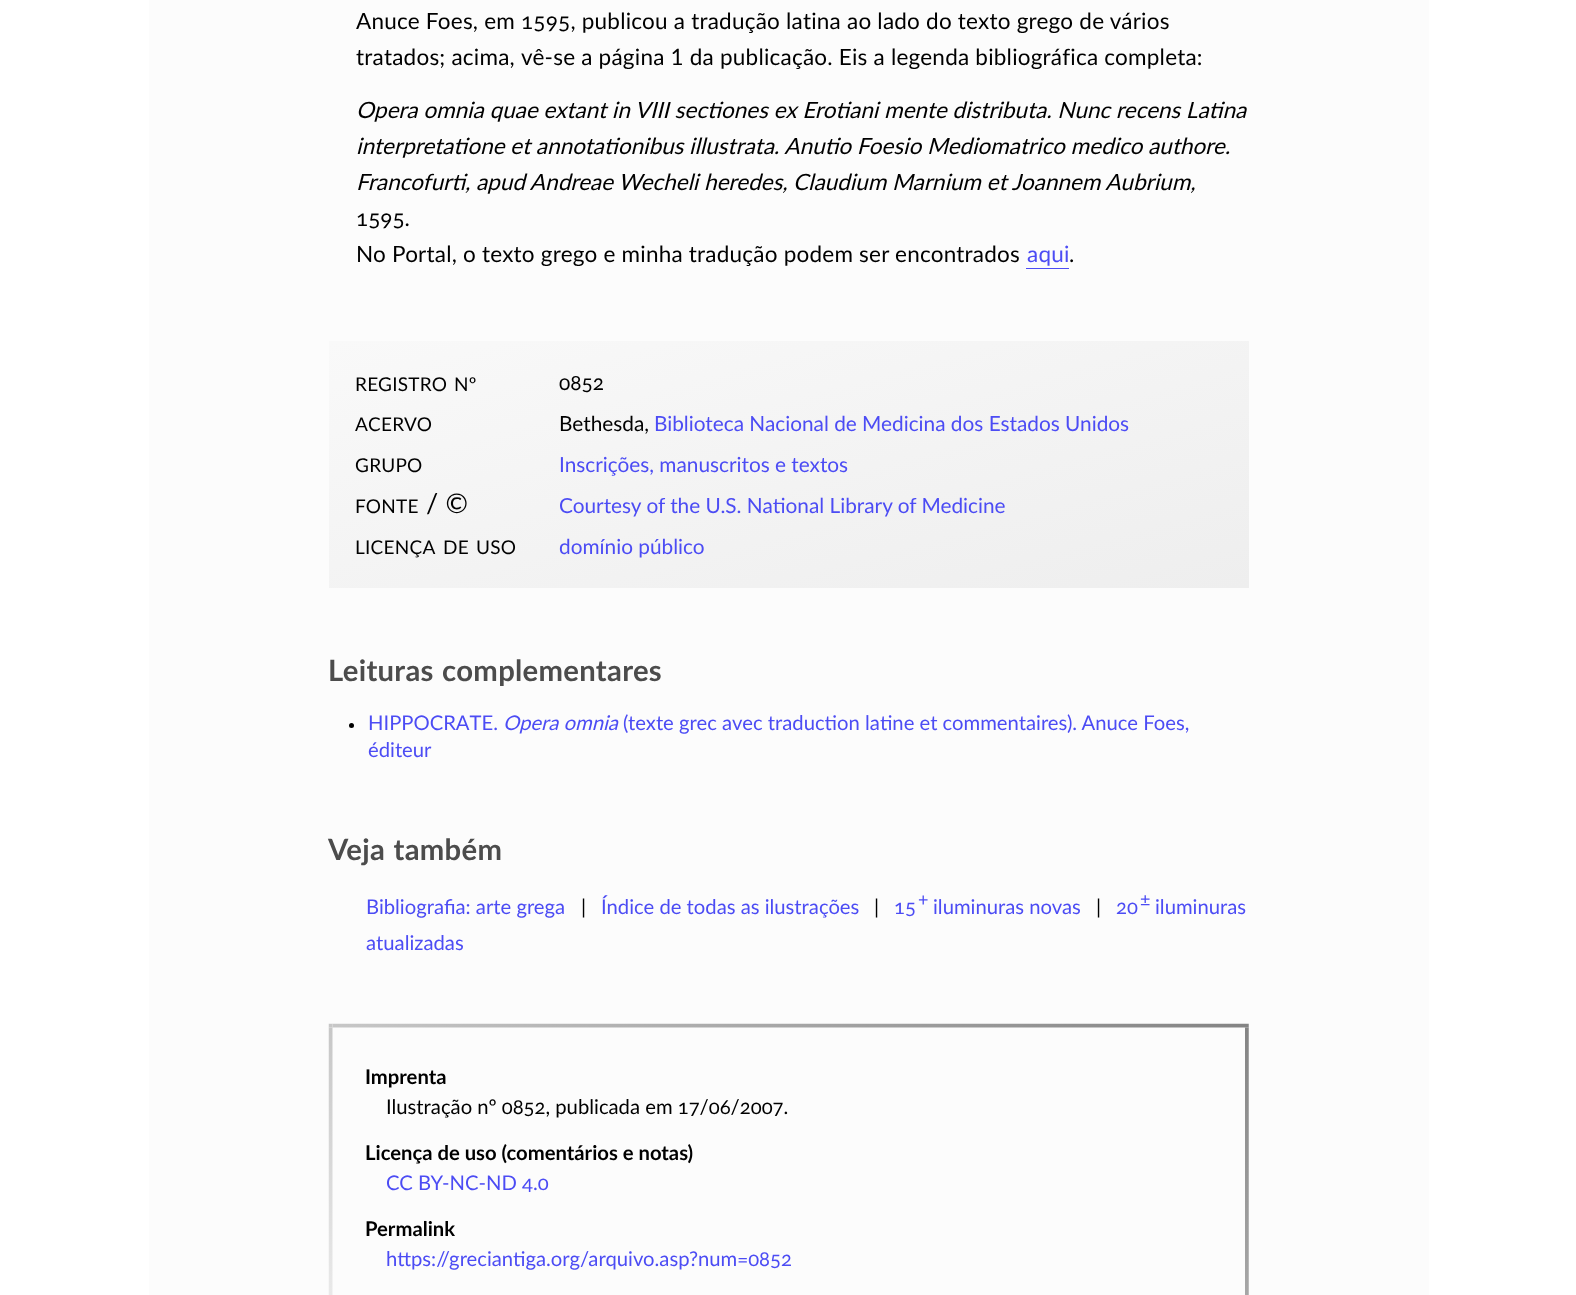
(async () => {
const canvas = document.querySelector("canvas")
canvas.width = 1576
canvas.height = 1295
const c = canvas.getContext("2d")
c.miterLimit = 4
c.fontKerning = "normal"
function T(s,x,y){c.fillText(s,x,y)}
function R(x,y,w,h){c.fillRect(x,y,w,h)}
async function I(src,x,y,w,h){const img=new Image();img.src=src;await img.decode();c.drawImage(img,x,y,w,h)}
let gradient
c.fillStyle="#fff"
R(0,0,1576,1295)
c.fillStyle="#fcfcfc"
R(149,0,1280,1295)
c.letterSpacing="0.22px"
c.font="22.5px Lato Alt"
c.fillStyle="#000"
T("Anuce Foes, em 1595, publicou a tradução latina ao lado do texto grego de vários",356,29)
c.font="22.5px Lato"
T("tratados; acima,",356,65)
T("vê-se a página 1 da publicação. Eis a legenda bibliográfica completa:",521,65)
c.letterSpacing="0px"
c.font="italic 22.5px Lato"
T("Opera omnia quae extant in VIII sectiones ex Erotiani mente distributa. Nunc recens Latina",356,118)
T("interpretatione et annotationibus illustrata. Anutio Foesio Mediomatrico medico authore.",356,154)
T("Francofurti, apud Andreae Wecheli heredes, Claudium Marnium et Joannem Aubrium,",356,190)
c.font="22.5px Lato Alt"
T("1595.",356,226)
c.letterSpacing="0.22px"
c.font="22.5px Lato"
T("No Portal, o texto grego e minha tradução podem ser encontrados",356,262)
c.fillStyle="#4c4cf4"
T("aqui",1027,262)
R(1026,268,43,1)
c.fillStyle="#000"
T(".",1069,262)
gradient = c.createLinearGradient(850,694,727,235)
gradient.addColorStop(0,"#eee")
gradient.addColorStop(1,"#f9f9f9")
c.fillStyle = gradient
R(329,341,920,247)
c.letterSpacing="0.25px"
c.font="19px Lato"
c.fillStyle="#000"
T("REGISTRO",355,391)
T("Nº",454,391)
c.letterSpacing="0px"
c.font="20.8px Lato Alt"
T("0852",559,390)
c.letterSpacing="0.25px"
c.font="19px Lato"
T("ACERVO",355,431)
c.letterSpacing="0px"
c.font="20.8px Lato"
T("Bethesda,",559,431)
c.fillStyle="#4c4cf4"
T("Biblioteca Nacional de Medicina dos Estados Unidos",654,431)
c.letterSpacing="0.25px"
c.font="19px Lato"
c.fillStyle="#000"
T("GRUPO",355,472)
c.letterSpacing="0px"
c.font="20.8px Lato"
c.fillStyle="#4c4cf4"
T("Inscrições, manuscritos e textos",559,472)
c.letterSpacing="0.25px"
c.font="19px Lato"
c.fillStyle="#000"
T("FONTE",355,513)
c.font="27px Lato"
T("/ ©",426,513)
c.letterSpacing="0px"
c.font="20.8px Lato"
c.fillStyle="#4c4cf4"
T("Courtesy of the U.S. National Library of Medicine",559,513)
c.letterSpacing="0.25px"
c.font="19px Lato"
c.fillStyle="#000"
T("LICENÇA",355,554)
T("DE",443,554)
T("USO",476,554)
c.letterSpacing="0px"
c.font="20.8px Lato"
c.fillStyle="#4c4cf4"
T("domínio público",559,554)
c.letterSpacing="0.3px"
c.wordSpacing="1px"
c.font="bold 29.25px Lato"
c.fillStyle="#4c4c4c"
T("Leituras complementares",328,681)
c.fillStyle="#000"
c.beginPath()
c.arc(351.5,725.5,2.5,0,7)
c.fill()
c.letterSpacing="0px"
c.wordSpacing="0px"
c.font="20.25px Lato"
c.fillStyle="#4c4cf4"
T("HIPPOCRATE.",368,730)
c.font="italic 20.25px Lato"
T("Opera omnia",503,730)
c.font="20.25px Lato"
T("(texte grec avec traduction latine et commentaires). Anuce Foes,",623,730)
T("éditeur",368,757)
c.letterSpacing="0.3px"
c.wordSpacing="1px"
c.font="bold 29.25px Lato"
c.fillStyle="#4c4c4c"
T("Veja também",328,860)
c.letterSpacing="0px"
c.wordSpacing="0px"
c.font="20.25px Lato"
c.fillStyle="#4c4cf4"
T("Bibliografia: arte grega",366,914)
c.fillStyle="#000"
T("|",581,914)
c.fillStyle="#4c4cf4"
T("Índice de todas as ilustrações",601,914)
c.fillStyle="#000"
T("|",874,914)
c.font="20.25px Lato Alt"
c.fillStyle="#4c4cf4"
T("15",894,914)
c.font="18px Lato"
T("+",918,906)
c.font="20.25px Lato"
T("iluminuras novas",933,914)
c.fillStyle="#000"
T("|",1096,914)
c.font="20.25px Lato Alt"
c.fillStyle="#4c4cf4"
T("20",1116,914)
c.font="18px Lato"
T("±",1140,906)
c.font="20.25px Lato"
T("iluminuras",1155,914)
T("atualizadas",366,950)
await I("1.png",328,1023,921,272)
c.font="bold 20.25px Lato"
c.fillStyle="#000"
T("Imprenta",365,1084)
c.font="20.25px Lato Alt"
T("Ilustração nº 0852, publicada em 17/06/2007.",386,1114)
c.font="bold 20.25px Lato"
T("Licença de uso (comentários e notas)",365,1160)
c.font="20.25px Lato Alt"
c.fillStyle="#4c4cf4"
T("CC BY-NC-ND 4.0",386,1190)
c.font="bold 20.25px Lato"
c.fillStyle="#000"
T("Permalink",365,1236)
c.font="20.25px Lato Alt"
c.fillStyle="#4c4cf4"
T("https://greciantiga.org/arquivo.asp?num=0852",386,1266)
})()
